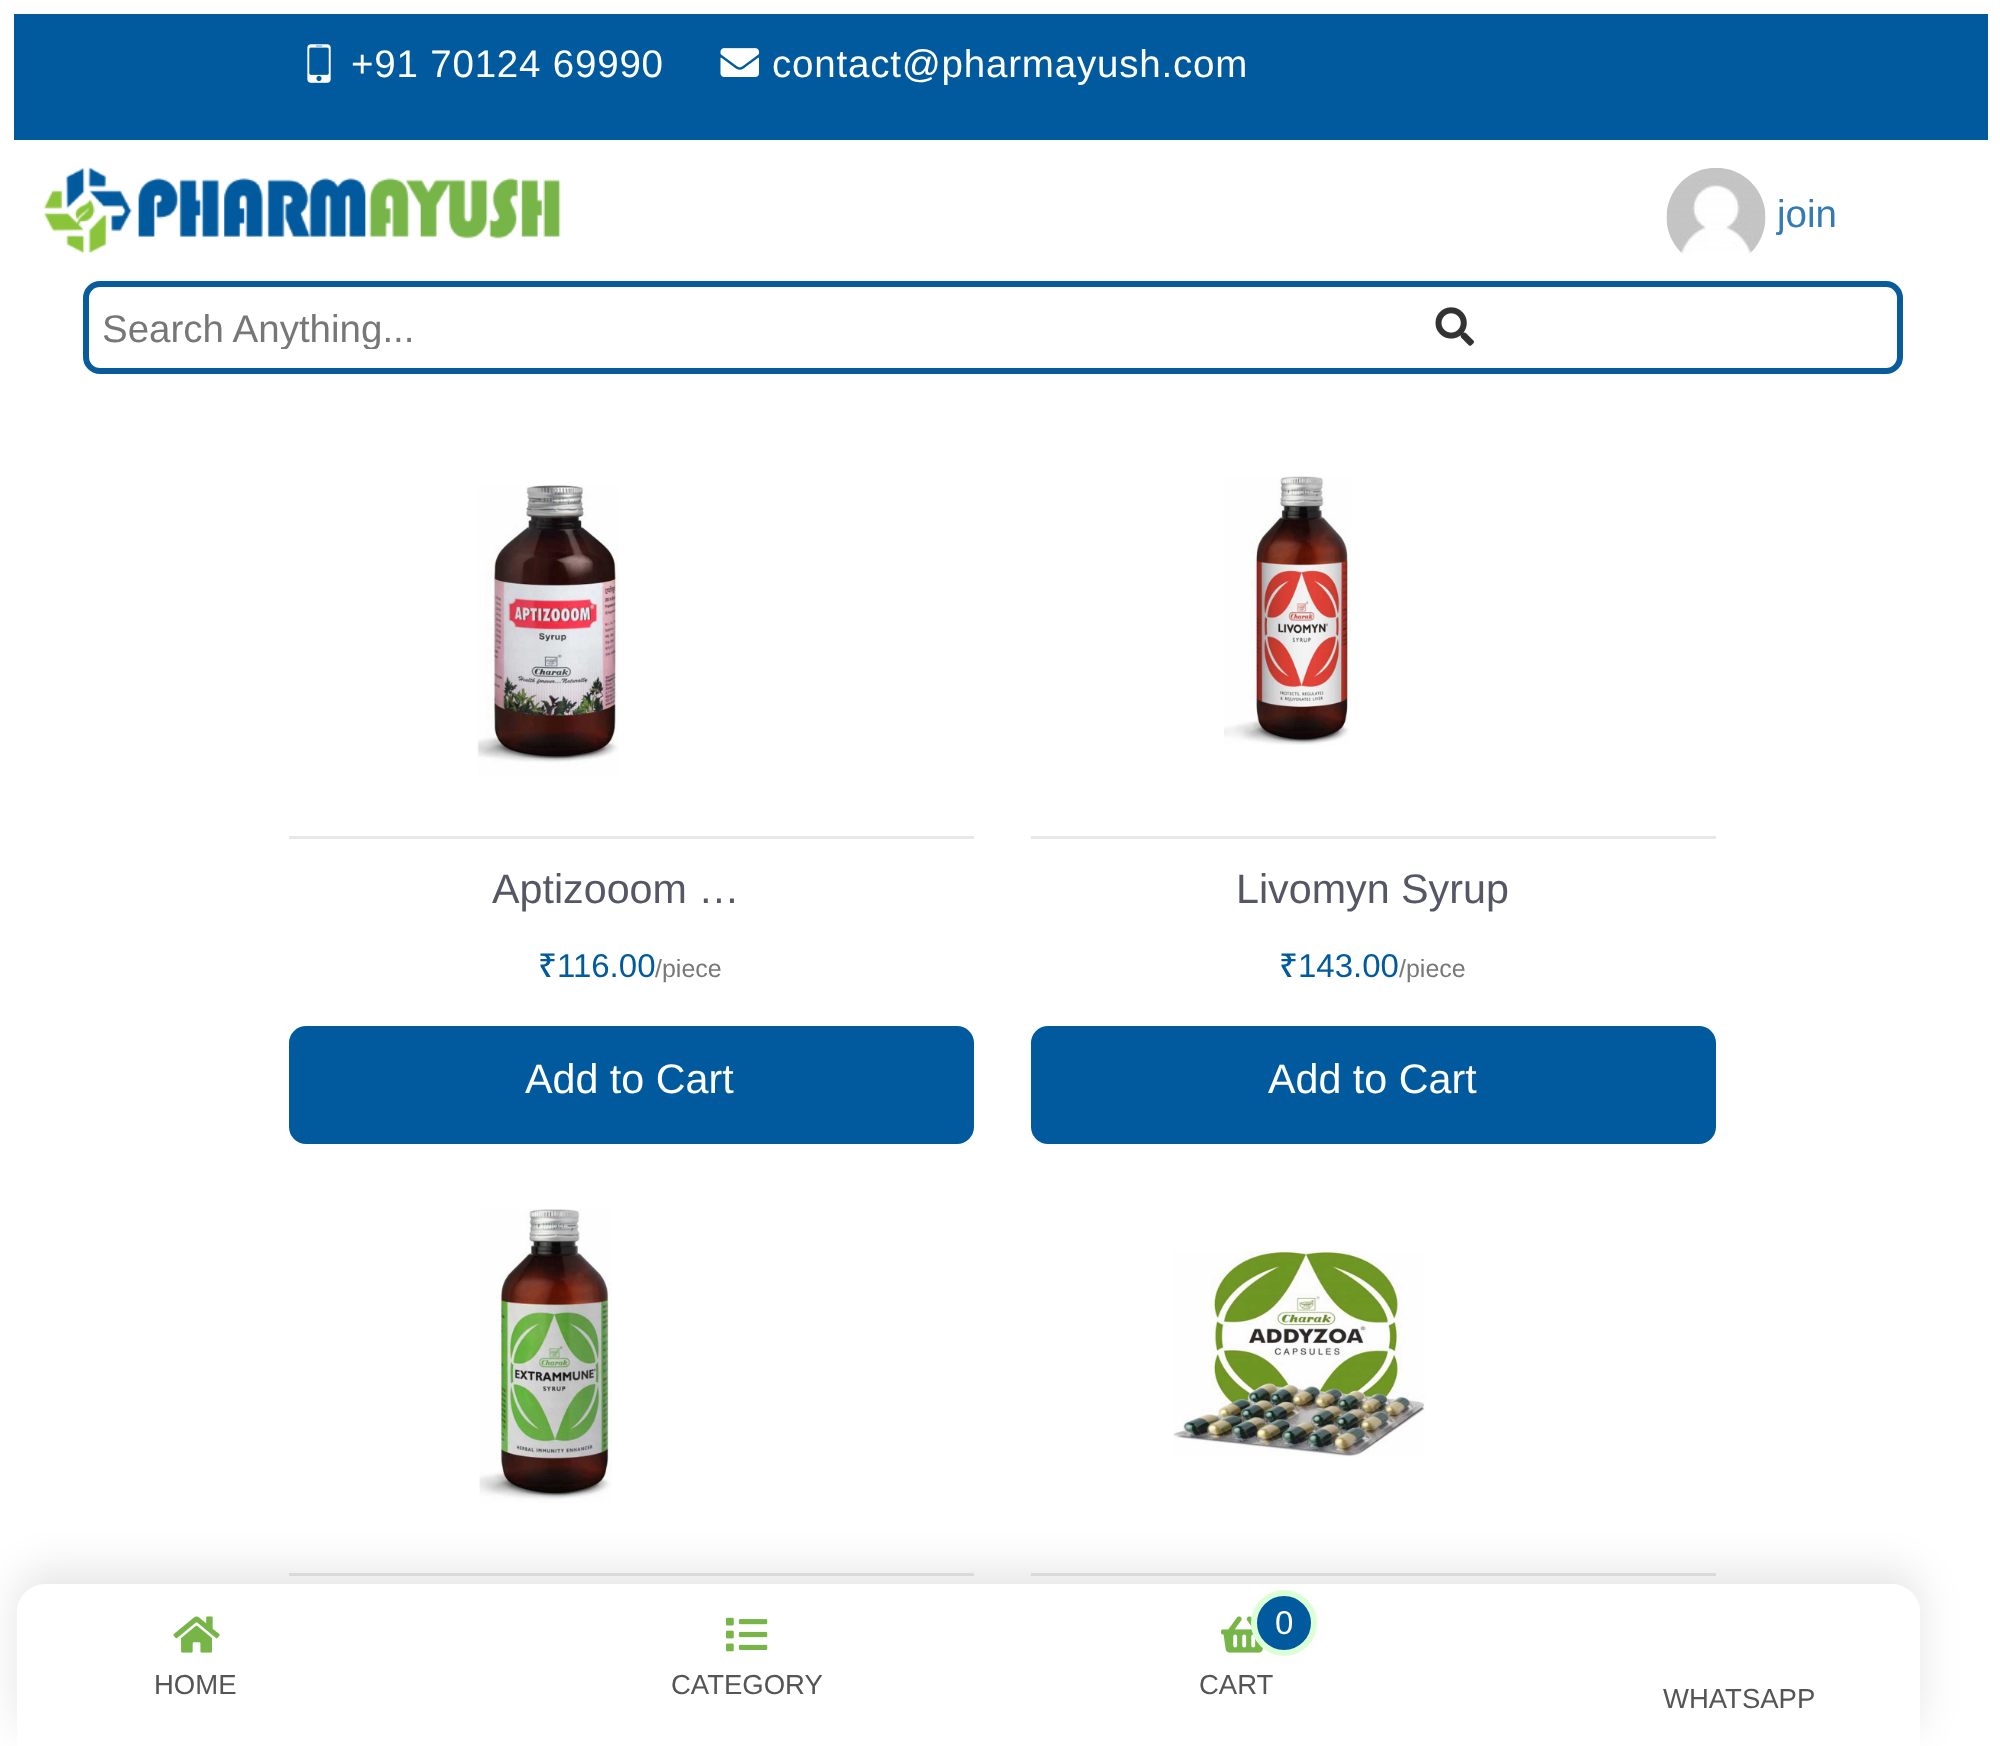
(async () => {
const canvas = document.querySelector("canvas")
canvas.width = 2000
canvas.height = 1746
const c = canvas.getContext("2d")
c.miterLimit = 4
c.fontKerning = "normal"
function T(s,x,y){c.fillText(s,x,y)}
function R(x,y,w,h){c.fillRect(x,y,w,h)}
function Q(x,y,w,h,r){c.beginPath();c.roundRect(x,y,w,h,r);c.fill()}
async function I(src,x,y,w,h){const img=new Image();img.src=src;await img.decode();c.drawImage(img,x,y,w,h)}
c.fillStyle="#fff"
R(0,0,2000,1746)
c.fillStyle="#005a9d"
R(14,14,1974,126)
await I("1.png",307,44,24,39)
c.letterSpacing="0.8px"
c.font="38.5px Liberation Sans"
c.fillStyle="#fff"
T("+91 70124 69990",351,77)
await I("2.png",720,48,39,29)
T("contact@pharmayush.com",772,77)
await I("3.png",43,167,518,86)
await I("4.png",1666,168,100,86)
c.letterSpacing="0px"
c.fillStyle="#337ab7"
T("join",1777,227)
c.beginPath()
c.roundRect(86,284,1814,87,14)
c.strokeStyle="#085c9c"
c.lineWidth=6
c.stroke()
c.save()
c.beginPath()
c.rect(102,305,1336,44)
c.clip()
c.fillStyle="#777"
T("Search Anything...",102,342)
c.restore()
await I("5.png",1435,307,39,39)
await I("6.png",477,485,142,290)
c.fillStyle="#e8e8e8"
R(289,836,685,3)
c.font="41.25px Liberation Sans"
c.fillStyle="#565765"
T("Aptizooom …",492,903)
c.font="500 33px Noto Sans"
c.fillStyle="#005a9d"
T("₹",538,977)
c.font="33px Liberation Sans"
T("116.00",557,977)
c.font="25px Liberation Sans"
c.fillStyle="#777"
T("/piece",655,977)
c.fillStyle="#005a9d"
Q(289,1026,685,118,17)
c.font="41.25px Liberation Sans"
c.fillStyle="#fff"
T("Add to Cart",525,1093)
await I("7.png",1224,476,127,269)
c.fillStyle="#e8e8e8"
R(1031,836,685,3)
c.fillStyle="#565765"
T("Livomyn Syrup",1236,903)
c.font="500 33px Noto Sans"
c.fillStyle="#005a9d"
T("₹",1279,977)
c.font="33px Liberation Sans"
T("143.00",1298,977)
c.font="25px Liberation Sans"
c.fillStyle="#777"
T("/piece",1399,977)
c.fillStyle="#005a9d"
Q(1031,1026,685,118,17)
c.font="41.25px Liberation Sans"
c.fillStyle="#fff"
T("Add to Cart",1268,1093)
await I("8.png",479,1209,133,294)
c.fillStyle="#e8e8e8"
R(289,1573,685,3)
await I("9.png",1173,1251,252,206)
R(1031,1573,685,3)
c.fillStyle="#0000001a"
c.filter="blur(20.5px)"
c.beginPath()
c.roundRect(17,1570,1903,163,28)
c.fill()
c.filter="none"
c.fillStyle="#fff"
c.beginPath()
c.roundRect(17,1584,1903,162,[28,28,0,0])
c.fill()
await I("10.png",173,1616,47,37)
c.font="27.5px Liberation Sans"
c.fillStyle="#555"
T("HOME",154,1694)
await I("11.png",726,1617,42,35)
T("CATEGORY",671,1694)
await I("12.png",1221,1616,42,37)
c.fillStyle="#005a9d"
c.beginPath()
c.arc(1284,1623,30,0,7)
c.fill()
c.strokeStyle="#ddffd5"
c.stroke()
c.font="33px Liberation Sans"
c.fillStyle="#fff"
T("0",1275,1634)
c.font="27.5px Liberation Sans"
c.fillStyle="#555"
T("CART",1199,1694)
T("WHATSAPP",1663,1708)
})()
